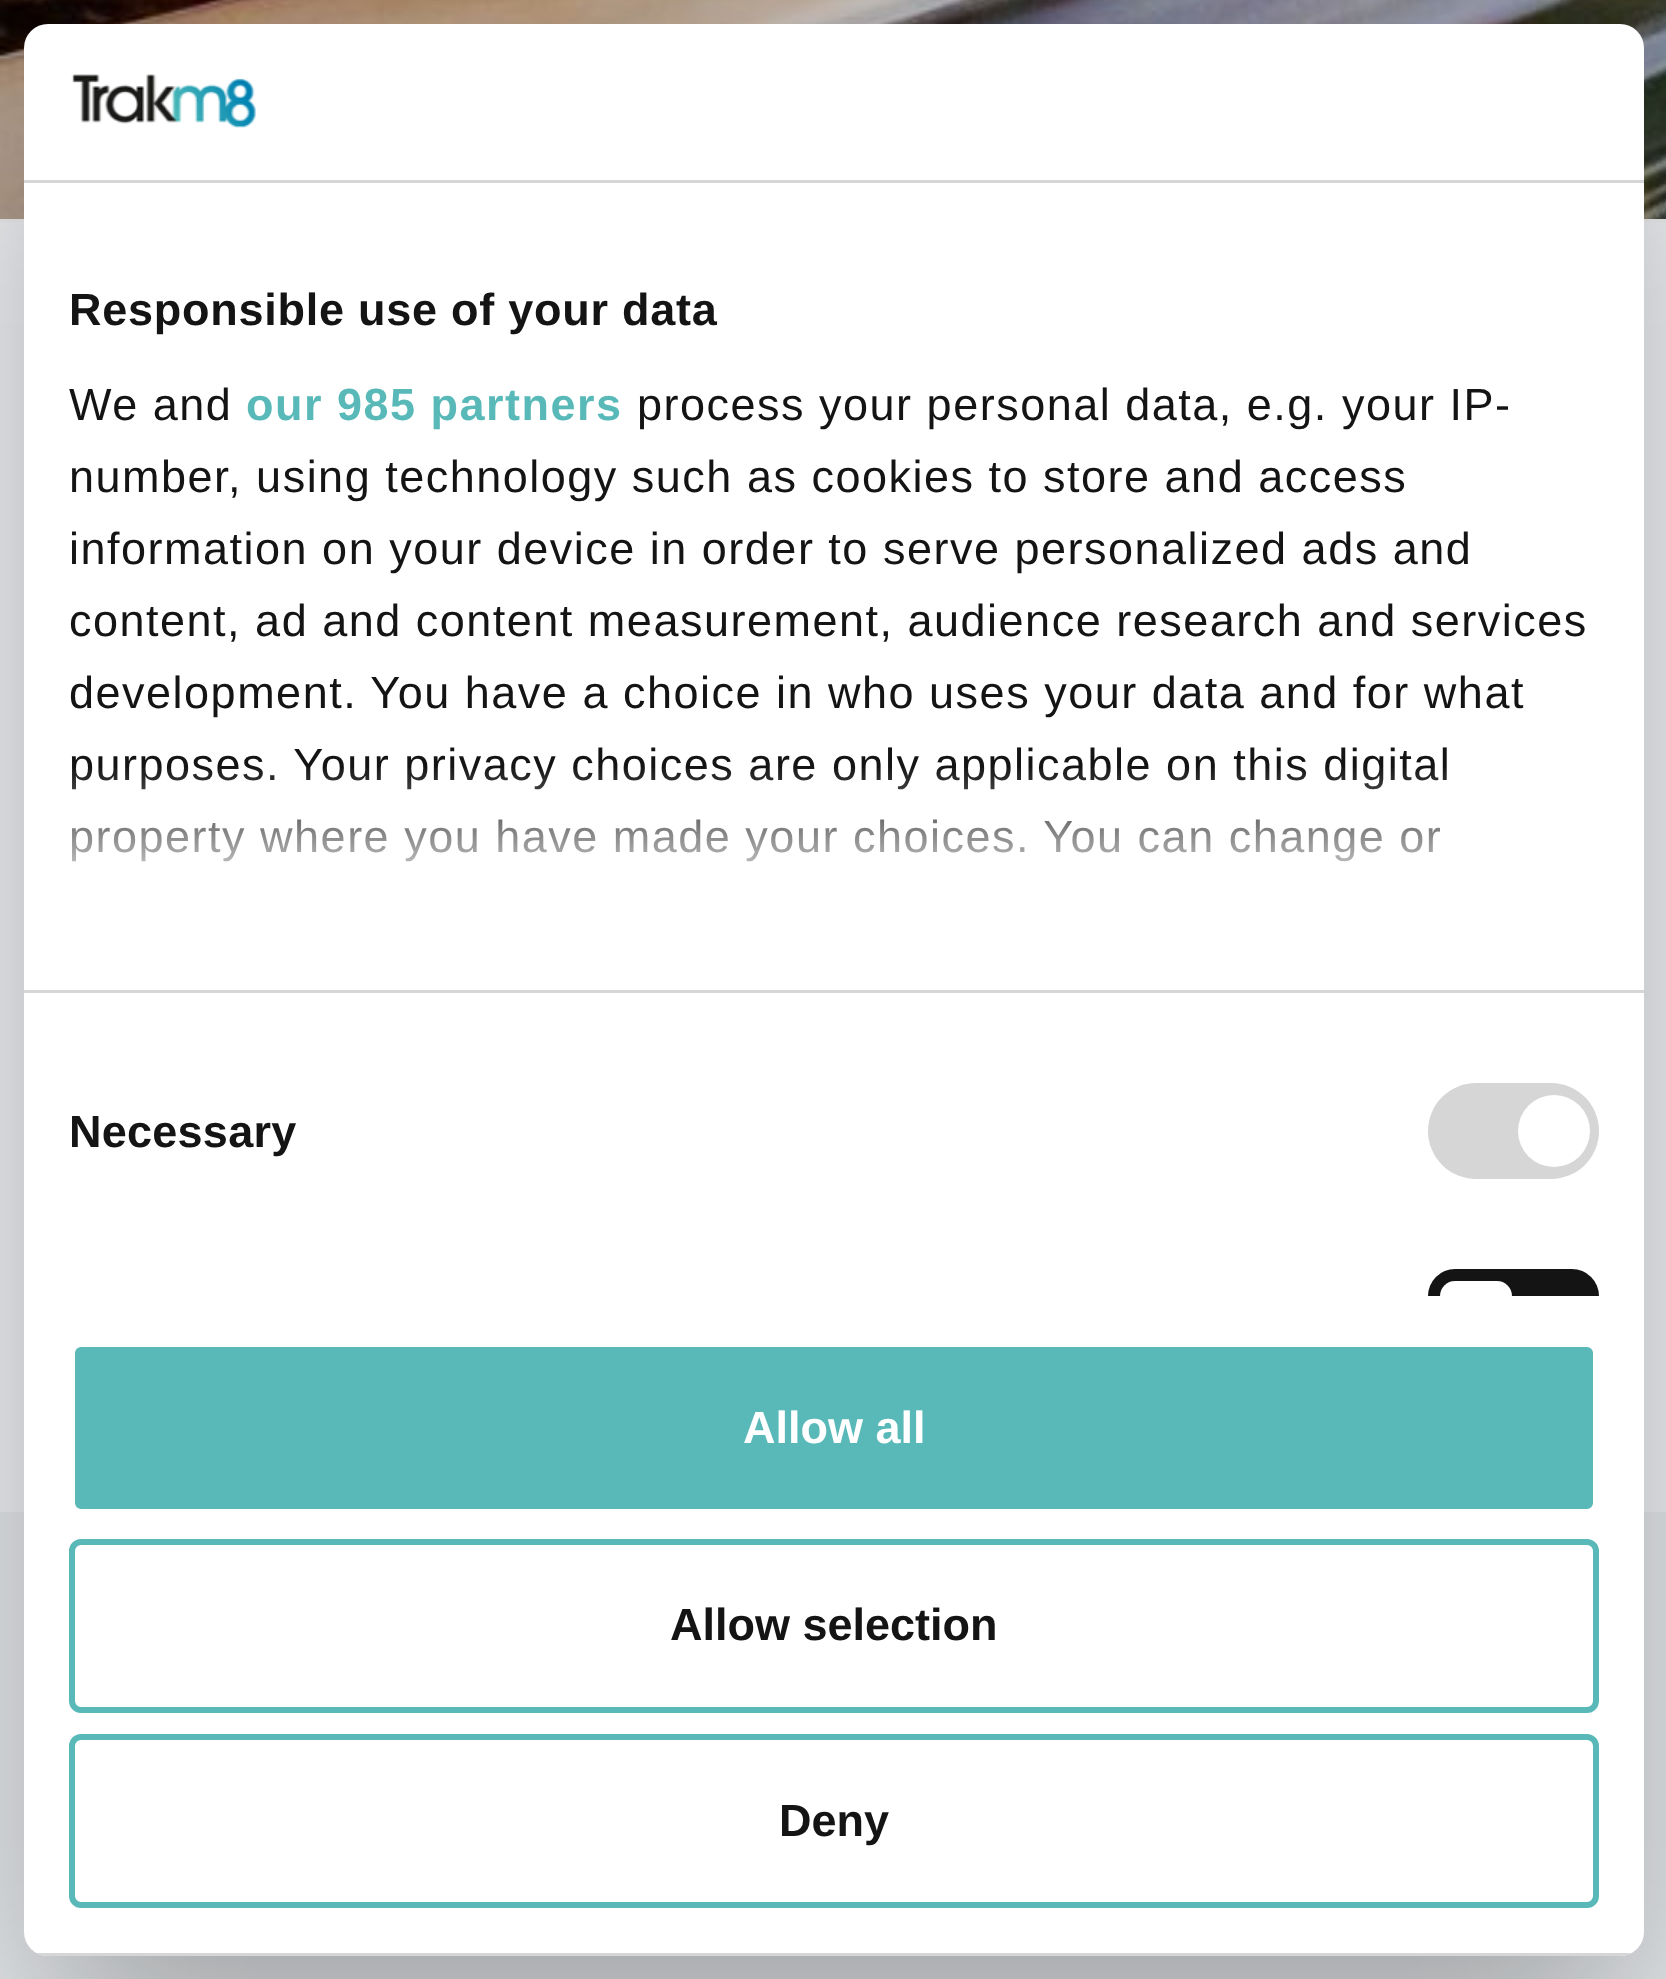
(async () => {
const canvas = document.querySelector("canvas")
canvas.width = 1666
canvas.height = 1979
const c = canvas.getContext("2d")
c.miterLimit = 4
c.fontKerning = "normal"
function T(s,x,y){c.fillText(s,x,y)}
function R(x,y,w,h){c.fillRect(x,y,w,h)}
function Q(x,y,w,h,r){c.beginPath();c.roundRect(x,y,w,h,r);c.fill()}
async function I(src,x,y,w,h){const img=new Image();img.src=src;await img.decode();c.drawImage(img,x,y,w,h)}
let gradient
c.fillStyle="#e9ecef"
R(0,0,1666,1979)
c.fillStyle="#f2f4f7"
R(0,222,1666,1290)
await I("1.png",0,0,1666,219)
c.fillStyle="#f1f1f1"
R(0,219,1666,3)
c.fillStyle="#0000004d"
c.filter="blur(102px)"
c.beginPath()
c.roundRect(24,120,1620,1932,24)
c.fill()
c.filter="none"
c.fillStyle="#fff"
Q(24,24,1620,1932,24)
c.fillStyle="#d6d6d6"
R(24,180,1620,3)
await I("2.png",71,74,185,54)
R(24,990,1620,3)
c.letterSpacing="0.75px"
c.font="bold 45px Liberation Sans"
c.fillStyle="#141414"
T("Responsible use of your data",69,325)
c.letterSpacing="1.5px"
c.font="45px Liberation Sans"
T("We and",69,420)
c.font="bold 45px Liberation Sans"
c.fillStyle="#59b9b9"
T("our 985 partners",246,420)
c.font="45px Liberation Sans"
c.fillStyle="#141414"
T("process your personal data, e.g. your IP-",637,420)
T("number, using technology such as cookies to store and access",69,492)
T("information on your device in order to serve personalized ads and",69,564)
T("content, ad and content measurement, audience research and services",69,636)
T("development. You have a choice in who uses your data and for what",69,708)
T("purposes. Your privacy choices are only applicable on this digital",69,780)
T("property where you have made your choices. You can change or",69,852)
gradient = c.createLinearGradient(815,990,815,765)
gradient.addColorStop(0,"#fff")
gradient.addColorStop(.5,"#ffffffcc")
gradient.addColorStop(1,"#ffffff00")
c.fillStyle = gradient
R(71,768,1376,94)
c.letterSpacing="0.25px"
c.font="bold 45px Liberation Sans"
c.fillStyle="#141414"
T("Necessary",69,1147)
c.fillStyle="#d6d6d6"
Q(1428,1083,171,96,48)
c.fillStyle="#fff"
c.beginPath()
c.arc(1554,1131,36,0,7)
c.fill()
c.fillStyle="#141414"
c.beginPath()
c.roundRect(1428,1269,171,27,[48,48,0,0])
c.fill()
c.fillStyle="#fff"
c.beginPath()
c.roundRect(1440,1281,72,15,[36,36,0,0])
c.fill()
c.save()
c.beginPath()
c.roundRect(24,24,1620,1932,24)
c.clip()
c.fillStyle="#d6d6d6"
R(36,1953,1596,3)
c.restore()
c.fillStyle="#59b9b9"
c.beginPath()
c.roundRect(72,1344,1524,168,9)
c.fill()
c.strokeStyle="#fff"
c.lineWidth=6
c.stroke()
c.letterSpacing="0px"
c.fillStyle="#fff"
T("Allow all",743,1443)
c.beginPath()
c.roundRect(72,1542,1524,168,9)
c.strokeStyle="#59b9b9"
c.stroke()
c.fillStyle="#141414"
T("Allow selection",670,1640)
c.beginPath()
c.roundRect(72,1737,1524,168,9)
c.stroke()
T("Deny",779,1836)
})()
